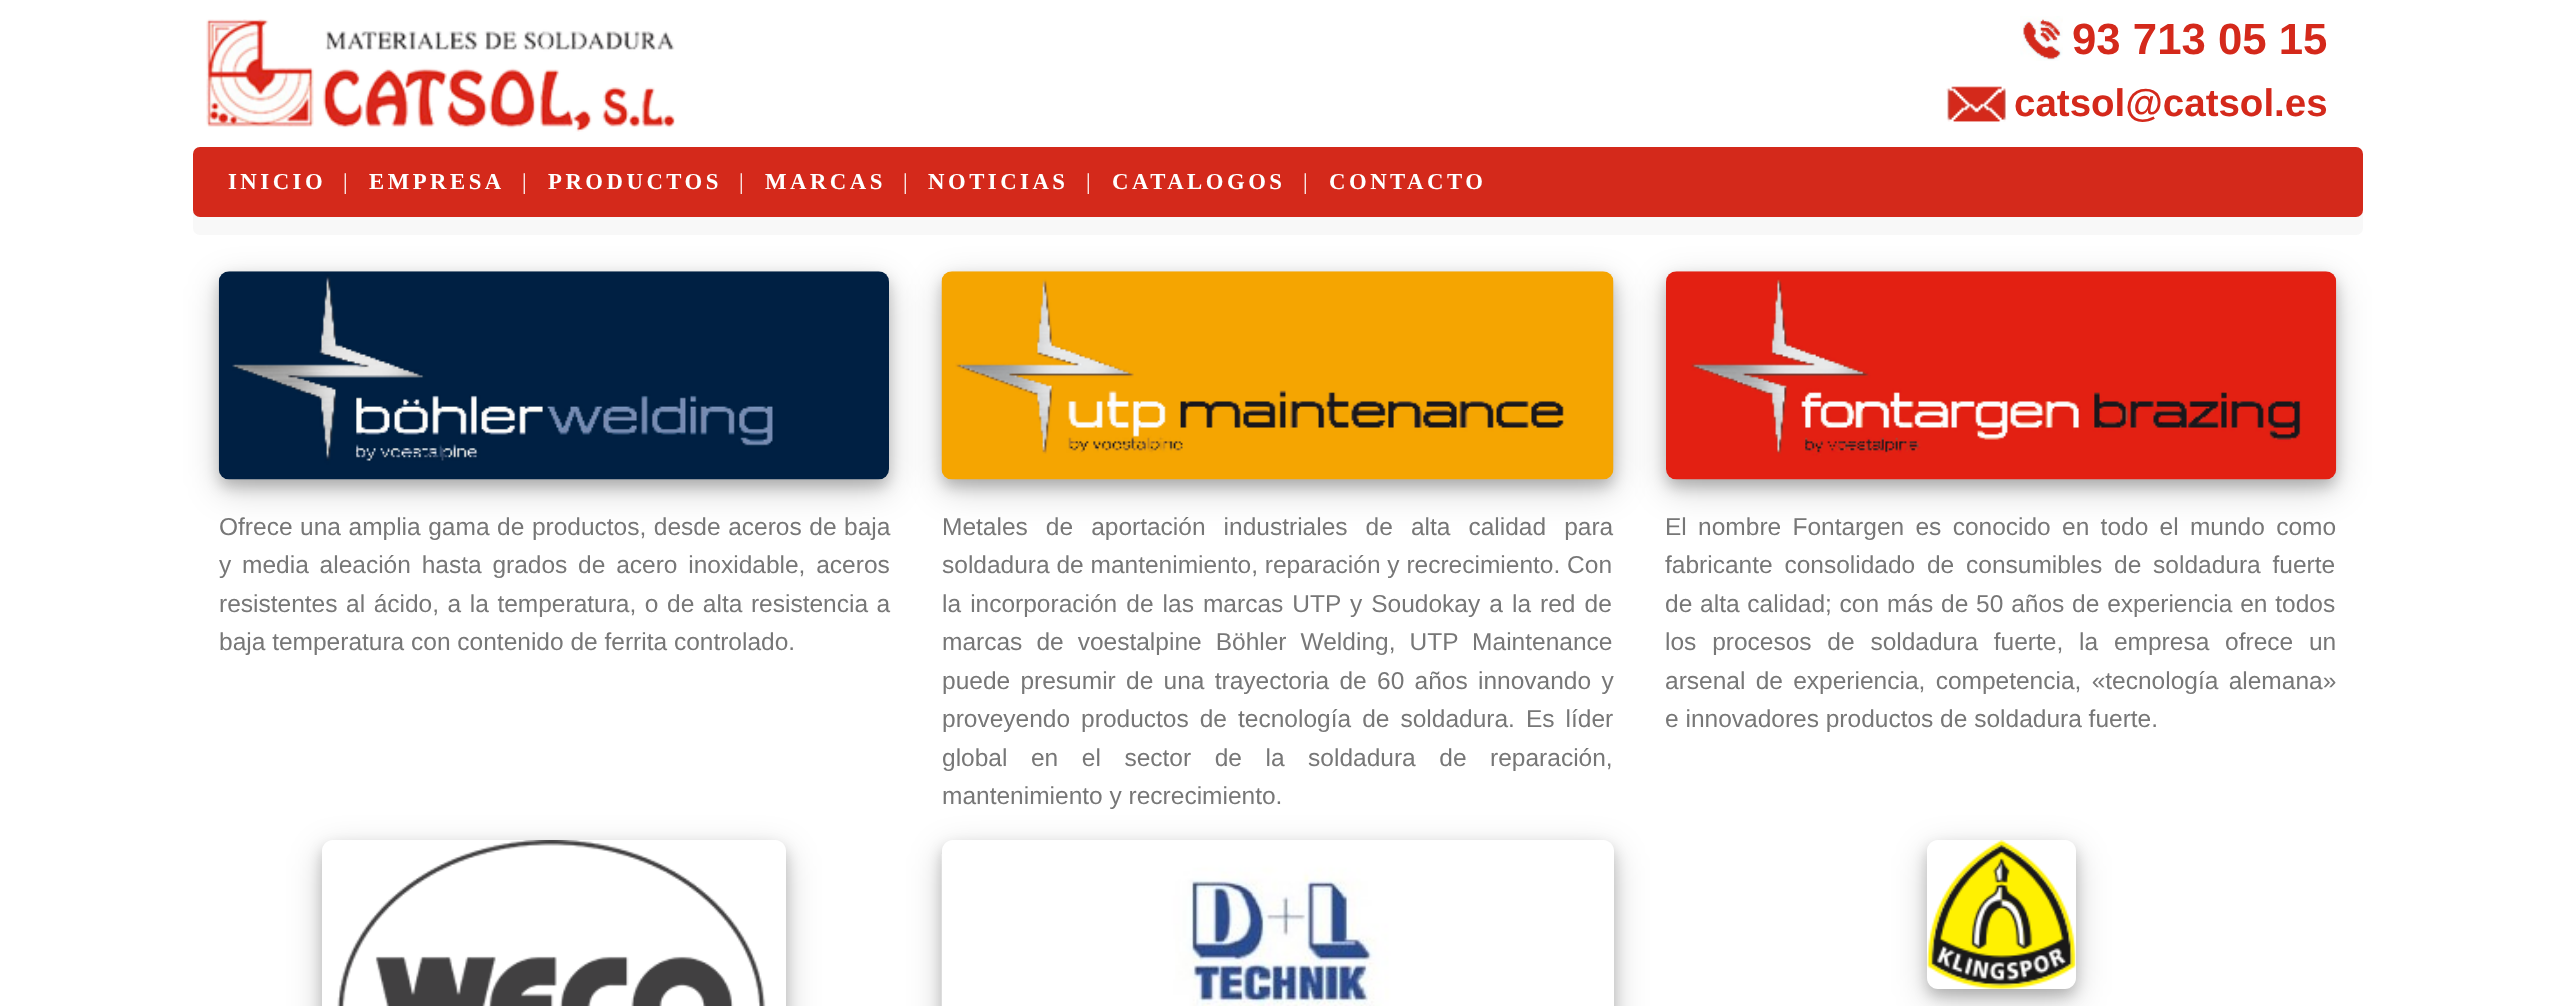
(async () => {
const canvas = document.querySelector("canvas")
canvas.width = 2554
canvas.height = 1006
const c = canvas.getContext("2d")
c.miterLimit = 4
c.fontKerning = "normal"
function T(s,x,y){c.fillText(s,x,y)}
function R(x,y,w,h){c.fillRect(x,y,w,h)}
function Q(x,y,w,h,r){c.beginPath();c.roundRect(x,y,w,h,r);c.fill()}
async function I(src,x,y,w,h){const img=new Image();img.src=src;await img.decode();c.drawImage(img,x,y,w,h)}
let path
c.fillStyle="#fff"
R(0,0,2554,1006)
await I("1.png",206,19,469,113)
await I("2.png",2020,16,43,45)
c.font="bold 43.75px Liberation Sans"
c.fillStyle="#d4291b"
T("93 713 05 15",2072,54)
await I("3.png",1946,86,61,36)
c.font="bold 38.5px Liberation Sans"
T("catsol@catsol.es",2014,116)
c.fillStyle="#f8f8f8"
Q(193,147,2170,88,7)
c.fillStyle="#d4291b"
Q(193,147,2170,70,7)
c.letterSpacing="3.5px"
c.font="bold 22.75px Liberation Serif"
c.fillStyle="#fff"
T("INICIO",228,189)
c.font="22.75px Liberation Serif"
T("|",343,189)
c.font="bold 22.75px Liberation Serif"
T("EMPRESA",369,189)
c.font="22.75px Liberation Serif"
T("|",522,189)
c.font="bold 22.75px Liberation Serif"
T("PRODUCTOS",548,189)
c.font="22.75px Liberation Serif"
T("|",739,189)
c.font="bold 22.75px Liberation Serif"
T("MARCAS",765,189)
c.font="22.75px Liberation Serif"
T("|",903,189)
c.font="bold 22.75px Liberation Serif"
T("NOTICIAS",928,189)
c.font="22.75px Liberation Serif"
T("|",1086,189)
c.font="bold 22.75px Liberation Serif"
T("CATALOGOS",1112,189)
c.font="22.75px Liberation Serif"
T("|",1303,189)
c.font="bold 22.75px Liberation Serif"
T("CONTACTO",1329,189)
c.fillStyle="#00000030"
c.filter="blur(17.5px)"
c.beginPath()
c.roundRect(219,282,670,208,11)
c.fill()
c.filter="none"
c.fillStyle="#00000033"
c.filter="blur(7px)"
c.beginPath()
c.roundRect(219,278,670,209,11)
c.fill()
c.filter="none"
await I("4.png",218,271,671,209)
c.letterSpacing="0px"
c.wordSpacing="0.75px"
c.font="24.5px Liberation Sans"
c.fillStyle="#777"
T("Ofrece una amplia gama de productos, desde aceros de baja",219,535)
c.wordSpacing="4px"
T("y media aleación hasta grados de acero inoxidable, aceros",219,573)
c.wordSpacing="1.75px"
T("resistentes al ácido, a la temperatura, o de alta resistencia a",219,612)
c.wordSpacing="0px"
T("baja temperatura con contenido de ferrita controlado.",219,650)
c.fillStyle="#00000030"
c.filter="blur(17.5px)"
c.beginPath()
c.roundRect(942,282,672,208,11)
c.fill()
c.filter="none"
c.fillStyle="#00000033"
c.filter="blur(7px)"
c.beginPath()
c.roundRect(942,278,672,209,11)
c.fill()
c.filter="none"
await I("5.png",941,271,673,209)
c.wordSpacing="11.25px"
c.fillStyle="#777"
T("Metales de aportación industriales de alta calidad para",942,535)
c.wordSpacing="0px"
T("soldadura de mantenimiento, reparación y recrecimiento. Con",942,573)
c.wordSpacing="2.25px"
T("la incorporación de las marcas UTP y Soudokay a la red de",942,612)
c.wordSpacing="7.25px"
T("marcas de voestalpine Böhler Welding, UTP Maintenance",942,650)
c.wordSpacing="3.5px"
T("puede presumir de una trayectoria de 60 años innovando y",942,689)
c.wordSpacing="4.25px"
T("proveyendo productos de tecnología de soldadura. Es líder",942,727)
c.wordSpacing="16.75px"
T("global en el sector de la soldadura de reparación,",942,766)
c.wordSpacing="0px"
T("mantenimiento y recrecimiento.",942,804)
c.fillStyle="#00000030"
c.filter="blur(17.5px)"
c.beginPath()
c.roundRect(1666,282,670,208,11)
c.fill()
c.filter="none"
c.fillStyle="#00000033"
c.filter="blur(7px)"
c.beginPath()
c.roundRect(1666,278,670,209,11)
c.fill()
c.filter="none"
await I("6.png",1666,271,671,209)
c.wordSpacing="4.5px"
c.fillStyle="#777"
T("El nombre Fontargen es conocido en todo el mundo como",1665,535)
c.wordSpacing="5px"
T("fabricante consolidado de consumibles de soldadura fuerte",1665,573)
c.wordSpacing="1px"
T("de alta calidad; con más de 50 años de experiencia en todos",1665,612)
c.wordSpacing="9px"
T("los procesos de soldadura fuerte, la empresa ofrece un",1665,650)
c.wordSpacing="3.5px"
T("arsenal de experiencia, competencia, «tecnología alemana»",1665,689)
c.wordSpacing="0px"
T("e innovadores productos de soldadura fuerte.",1665,727)
c.save()
path = new Path2D("M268 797h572v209h-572zm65 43h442c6 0 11 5 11 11v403c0 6-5 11-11 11h-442c-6 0-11-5-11-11v-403c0-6 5-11 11-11z")
c.clip(path,"evenodd")
c.fillStyle="#00000030"
c.filter="blur(17.5px)"
c.beginPath()
c.roundRect(322,851,464,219,11)
c.fill()
c.filter="none"
c.restore()
c.save()
path = new Path2D("M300 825h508v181h-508zm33 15h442c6 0 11 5 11 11v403c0 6-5 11-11 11h-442c-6 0-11-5-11-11v-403c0-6 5-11 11-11z")
c.clip(path,"evenodd")
c.fillStyle="#00000033"
c.filter="blur(7px)"
c.beginPath()
c.roundRect(322,847,464,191,11)
c.fill()
c.filter="none"
c.restore()
await I("7.png",337,840,429,166)
c.save()
path = new Path2D("M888 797h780v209h-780zm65 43h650c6 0 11 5 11 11v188c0 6-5 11-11 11h-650c-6 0-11-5-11-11v-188c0-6 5-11 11-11z")
c.clip(path,"evenodd")
c.fillStyle="#00000030"
c.filter="blur(17.5px)"
c.beginPath()
c.roundRect(942,851,672,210,11)
c.fill()
c.filter="none"
c.restore()
c.save()
path = new Path2D("M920 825h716v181h-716zm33 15h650c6 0 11 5 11 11v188c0 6-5 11-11 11h-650c-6 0-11-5-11-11v-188c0-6 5-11 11-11z")
c.clip(path,"evenodd")
c.fillStyle="#00000033"
c.filter="blur(7px)"
c.beginPath()
c.roundRect(942,847,672,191,11)
c.fill()
c.filter="none"
c.restore()
await I("8.png",941,854,673,152)
c.save()
path = new Path2D("M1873 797h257v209h-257zm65 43h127c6 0 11 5 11 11v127c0 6-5 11-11 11h-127c-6 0-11-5-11-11v-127c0-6 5-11 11-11z")
c.clip(path,"evenodd")
c.fillStyle="#00000030"
c.filter="blur(17.5px)"
c.beginPath()
c.roundRect(1927,851,149,148,11)
c.fill()
c.filter="none"
c.restore()
c.save()
path = new Path2D("M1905 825h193v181h-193zm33 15h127c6 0 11 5 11 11v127c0 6-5 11-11 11h-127c-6 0-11-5-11-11v-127c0-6 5-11 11-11z")
c.clip(path,"evenodd")
c.fillStyle="#00000033"
c.filter="blur(7px)"
c.beginPath()
c.roundRect(1927,847,149,149,11)
c.fill()
c.filter="none"
c.restore()
await I("9.png",1927,840,149,149)
})()
